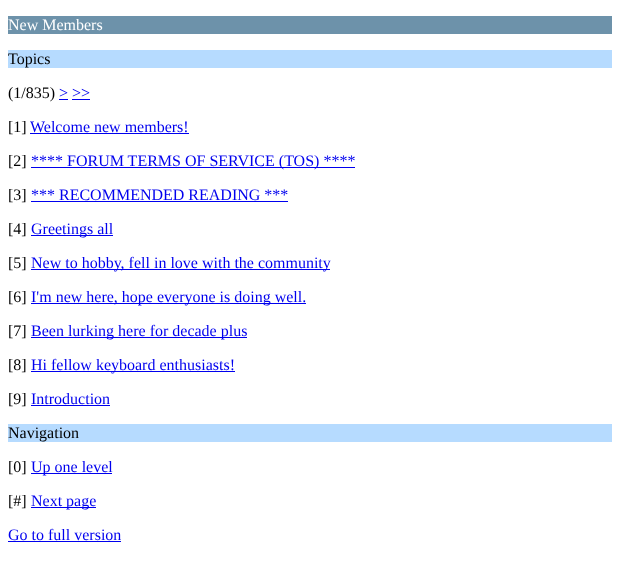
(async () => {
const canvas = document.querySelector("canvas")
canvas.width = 620
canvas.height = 572
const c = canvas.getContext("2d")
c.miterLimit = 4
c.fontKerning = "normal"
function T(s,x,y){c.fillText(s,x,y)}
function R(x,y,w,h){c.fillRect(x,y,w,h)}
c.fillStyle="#fff"
R(0,0,620,572)
c.fillStyle="#6d92aa"
R(8,16,604,18)
c.font="16px Liberation Serif"
c.fillStyle="#fff"
T("New Members",8,30)
c.fillStyle="#b6dbff"
R(8,50,604,18)
c.fillStyle="#000"
T("Topics",8,64)
T("(1/835)",8,98)
c.fillStyle="#00e"
T("> >>",59,98)
R(59,99,9,1)
R(72,99,18,1)
c.fillStyle="#000"
T("[1]",8,132)
c.fillStyle="#00e"
T("Welcome new members!",30,132)
R(30,133,159,1)
c.fillStyle="#000"
T("[2]",8,166)
c.fillStyle="#00e"
R(31,167,324,1)
T("**** FORUM TERMS OF SERVICE (TOS) ****",31,166)
c.fillStyle="#000"
T("[3]",8,200)
c.fillStyle="#00e"
T("*** RECOMMENDED READING ***",31,200)
R(31,201,257,1)
c.fillStyle="#000"
T("[4]",8,234)
c.fillStyle="#00e"
R(31,235,82,1)
T("Greetings all",31,234)
c.fillStyle="#000"
T("[5]",8,268)
c.fillStyle="#00e"
R(31,269,299,1)
T("New to hobby, fell in love with the community",31,268)
c.fillStyle="#000"
T("[6]",8,302)
c.fillStyle="#00e"
R(31,303,275,1)
T("I'm new here, hope everyone is doing well.",31,302)
c.fillStyle="#000"
T("[7]",8,336)
c.fillStyle="#00e"
R(31,337,216,1)
T("Been lurking here for decade plus",31,336)
c.fillStyle="#000"
T("[8]",8,370)
c.fillStyle="#00e"
R(31,371,204,1)
T("Hi fellow keyboard enthusiasts!",31,370)
c.fillStyle="#000"
T("[9]",8,404)
c.fillStyle="#00e"
T("Introduction",31,404)
R(31,405,79,1)
c.fillStyle="#b6dbff"
R(8,424,604,18)
c.fillStyle="#000"
T("Navigation",8,438)
T("[0]",8,472)
c.fillStyle="#00e"
R(31,473,81,1)
T("Up one level",31,472)
c.fillStyle="#000"
T("[#]",8,506)
c.fillStyle="#00e"
R(31,507,65,1)
T("Next page",31,506)
T("Go to full version",8,540)
R(8,541,113,1)
})()
